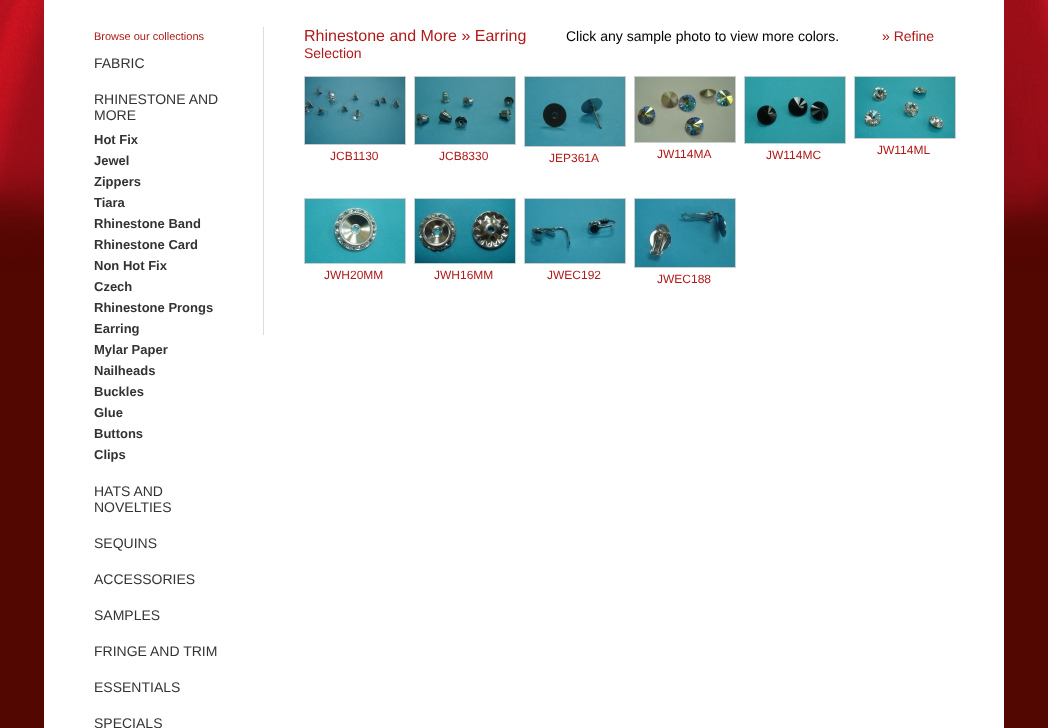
(async () => {
const canvas = document.querySelector("canvas")
canvas.width = 1048
canvas.height = 728
const c = canvas.getContext("2d")
c.miterLimit = 4
c.fontKerning = "normal"
function T(s,x,y){c.fillText(s,x,y)}
function R(x,y,w,h){c.fillRect(x,y,w,h)}
async function I(src,x,y,w,h){const img=new Image();img.src=src;await img.decode();c.drawImage(img,x,y,w,h)}
c.fillStyle="#520701"
R(0,0,1048,728)
await I("1.png",0,0,1048,270)
c.fillStyle="#fff"
R(44,0,960,728)
c.font="11px Liberation Sans"
c.fillStyle="#af1b1b"
T("Browse our collections",94,40)
c.font="14px Liberation Sans"
c.fillStyle="#333"
T("FABRIC",94,68)
T("RHINESTONE AND",94,104)
T("MORE",94,120)
c.font="bold 13px Liberation Sans"
T("Hot Fix",94,144)
T("Jewel",94,165)
T("Zippers",94,186)
T("Tiara",94,207)
T("Rhinestone Band",94,228)
T("Rhinestone Card",94,249)
T("Non Hot Fix",94,270)
T("Czech",94,291)
T("Rhinestone Prongs",94,312)
T("Earring",94,333)
T("Mylar Paper",94,354)
T("Nailheads",94,375)
T("Buckles",94,396)
T("Glue",94,417)
T("Buttons",94,438)
T("Clips",94,459)
c.font="14px Liberation Sans"
T("HATS AND",94,496)
T("NOVELTIES",94,512)
T("SEQUINS",94,548)
T("ACCESSORIES",94,584)
T("SAMPLES",94,620)
T("FRINGE AND TRIM",94,656)
T("ESSENTIALS",94,692)
T("SPECIALS",94,728)
c.fillStyle="#ddd"
R(263,27,1,308)
c.font="16px Liberation Sans"
c.fillStyle="#af1b1b"
T("Rhinestone and More » Earring",304,41)
c.font="14px Liberation Sans"
c.fillStyle="#000"
T("Click any sample photo to view more colors.",566,41)
c.fillStyle="#af1b1b"
T("» Refine",882,41)
T("Selection",304,58)
c.strokeStyle="#ccc"
c.strokeRect(304.5,76.5,101,68)
await I("2.png",305,77,100,67)
c.font="12px Liberation Sans"
T("JCB1130",330,160)
c.strokeRect(414.5,76.5,101,68)
await I("3.png",415,77,100,67)
T("JCB8330",439,160)
c.strokeRect(524.5,76.5,101,70)
await I("4.png",525,77,100,69)
T("JEP361A",549,162)
c.strokeRect(634.5,76.5,101,66)
await I("5.png",635,77,100,65)
T("JW114MA",657,158)
c.strokeRect(744.5,76.5,101,67)
await I("6.png",745,77,100,66)
T("JW114MC",766,159)
c.strokeRect(854.5,76.5,101,62)
await I("7.png",855,77,100,61)
T("JW114ML",877,154)
c.strokeRect(304.5,198.5,101,65)
await I("8.png",305,199,100,64)
T("JWH20MM",324,279)
c.strokeRect(414.5,198.5,101,65)
await I("9.png",415,199,100,64)
T("JWH16MM",434,279)
c.strokeRect(524.5,198.5,101,65)
await I("10.png",525,199,100,64)
T("JWEC192",547,279)
c.strokeRect(634.5,198.5,101,69)
await I("11.png",635,199,100,68)
T("JWEC188",657,283)
})()
